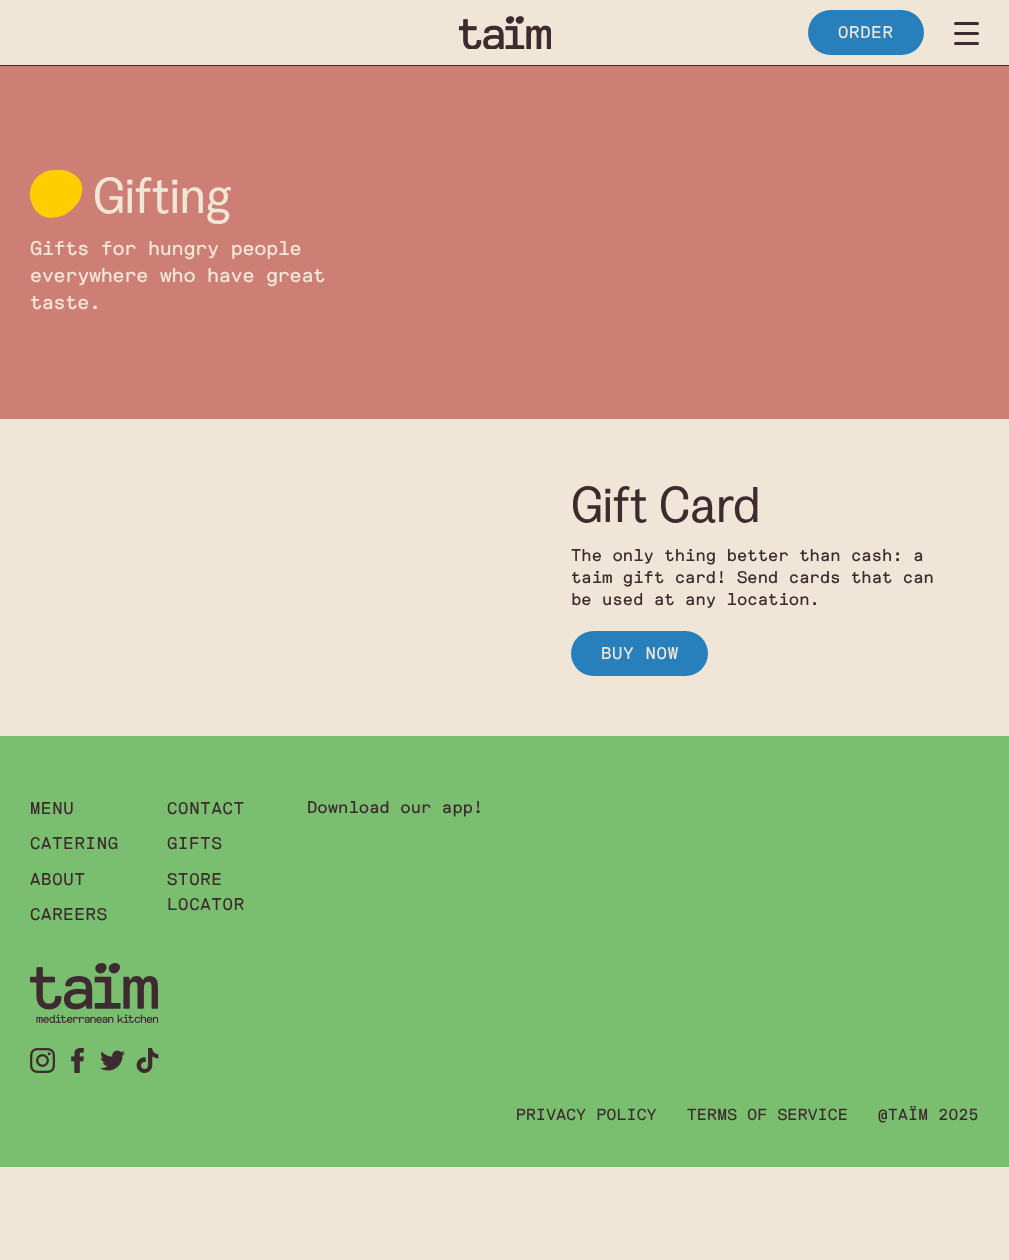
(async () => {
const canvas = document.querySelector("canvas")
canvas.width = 1009
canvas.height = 1260
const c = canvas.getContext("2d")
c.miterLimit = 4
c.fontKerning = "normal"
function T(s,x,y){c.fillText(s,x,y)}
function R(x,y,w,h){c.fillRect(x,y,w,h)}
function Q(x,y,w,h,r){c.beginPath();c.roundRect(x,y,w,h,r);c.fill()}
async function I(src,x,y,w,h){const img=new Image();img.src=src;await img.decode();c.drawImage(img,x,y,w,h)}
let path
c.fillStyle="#f0e6d8"
R(0,0,1009,1260)
c.fillStyle="#3e2b2e"
R(0,65,1009,1)
await I("1.png",459,16,92,33)
c.fillStyle="#277fbb"
Q(808,10,116,45,22.5)
c.letterSpacing="0.75px"
c.font="17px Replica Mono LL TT"
c.fillStyle="#f0e6d8"
T("ORDER",838,38)
c.fillStyle="#3e2b2e"
Q(954,22,25,3,1.5)
Q(954,32,25,3,1.5)
Q(954,42,25,3,1.5)
c.fillStyle="#ce7f75"
R(0,66,1009,353)
c.fillStyle="#ffcd00"
path = new Path2D("M65 215c-11 3-20 6-30-5c-2-3-3-6-4-9c-4-13 4-26 16-30c4-1 8-1 11-1h4c9 1 19 7 20 16c1 11-4 19-12 25z")
c.fill(path)
c.letterSpacing="0px"
c.font="50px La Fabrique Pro"
c.fillStyle="#f0e6d8"
T("Gifting",93,213)
c.letterSpacing="-0.4px"
c.font="20px Replica Mono LL TT"
T("Gifts for hungry people",30,255)
T("everywhere who have great",30,282)
T("taste.",30,309)
c.letterSpacing="0px"
c.font="50px La Fabrique Pro"
c.fillStyle="#3e2b2e"
T("Gift Card",571,522)
c.font="17px Replica Mono LL TT"
T("The only thing better than cash: a",571,561)
T("taim gift card! Send cards that can",571,583)
T("be used at any location.",571,605)
c.fillStyle="#277fbb"
Q(571,631,137,45,22.5)
c.letterSpacing="0.75px"
c.fillStyle="#f0e6d8"
T("BUY NOW",601,659)
c.fillStyle="#7abe70"
R(0,736,1009,431)
c.fillStyle="#3e2b2e"
T("MENU",30,814)
T("CONTACT",167,814)
T("CATERING",30,849)
T("GIFTS",167,849)
T("ABOUT",30,885)
T("STORE",167,885)
T("LOCATOR",167,910)
T("CAREERS",30,920)
await I("2.png",30,963,128,60)
await I("3.png",30,1048,25,25)
await I("4.png",71,1048,13,25)
await I("5.png",100,1050,25,21)
await I("6.png",136,1048,23,25)
c.letterSpacing="0px"
T("Download our app!",307,813)
c.letterSpacing="0.3px"
c.font="16px Replica Mono LL TT"
T("PRIVACY POLICY",516,1120)
T("TERMS OF SERVICE",687,1120)
T("@TAÏM 2025",878,1120)
})()
